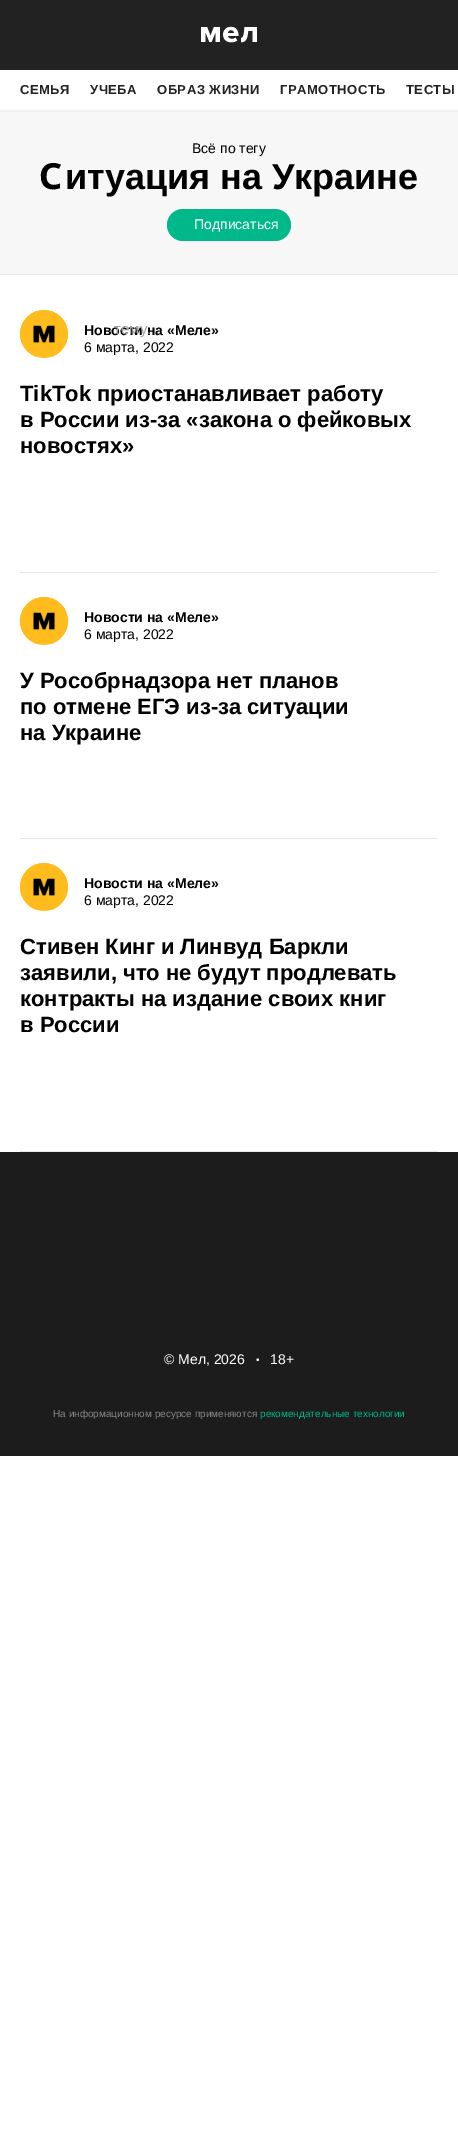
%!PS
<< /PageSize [458 2142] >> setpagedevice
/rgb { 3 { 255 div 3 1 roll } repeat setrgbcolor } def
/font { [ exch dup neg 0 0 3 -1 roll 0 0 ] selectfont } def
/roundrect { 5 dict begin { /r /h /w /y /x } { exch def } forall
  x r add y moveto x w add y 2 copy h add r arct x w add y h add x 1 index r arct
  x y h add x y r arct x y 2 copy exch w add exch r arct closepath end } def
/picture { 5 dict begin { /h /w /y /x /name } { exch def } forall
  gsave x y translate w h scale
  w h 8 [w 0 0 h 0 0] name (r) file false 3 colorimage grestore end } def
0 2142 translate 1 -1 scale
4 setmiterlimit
255 255 255 rgb
0 0 458 2142 rectfill
34 34 34 rgb
0 0 458 70 rectfill
(img/1.rgb) 201 26 56 17 picture
[
  [0 110 458 2 242 242 242]
  [0 112 458 162 247 247 247]
  [0 274 458 1 231 231 231]
] { aload pop rgb rectfill } forall
0 184 138 rgb
167 209 124 32 16 roundrect fill
230 230 230 rgb
20 572 418 1 rectfill
(img/2.rgb) 20 310 48 47 picture
(img/3.rgb) 20 310 48 48 picture
20 838 418 1 rectfill
(img/2.rgb) 20 597 48 47 picture
(img/3.rgb) 20 597 48 48 picture
20 1151 418 1 rectfill
(img/2.rgb) 20 863 48 47 picture
(img/3.rgb) 20 863 48 48 picture
28 28 28 rgb
0 1152 458 304 rectfill
/LiberationSans-Bold 13 font
34 34 34 rgb
20 94 moveto 0.5 0 (СЕМЬЯ) ashow
90 94 moveto 0.5 0 (УЧЕБА) ashow
157 94 moveto 0.5 0 (ОБРАЗ ЖИЗНИ) ashow
280 94 moveto 0.5 0 (ГРАМОТНОСТЬ) ashow
406 94 moveto 0.5 0 (ТЕСТЫ) ashow
/LiberationSans-Regular 14 font
0 0 0 rgb
192 153 moveto (Всё по тегу) show
/NotoSans-Bold 36 font
39 189 moveto (С) show
/LiberationSans-Bold 36 font
65 189 moveto (итуация на Украине) show
/LiberationSans-Regular 14 font
255 255 255 rgb
194 229 moveto (Подписаться) show
/LiberationSans-Bold 14 font
0 0 0 rgb
84 335 moveto (Новости на «Меле») show
/LiberationSans-Regular 15 font
159 159 159 rgb
114 334 moveto (тему.) show
/LiberationSans-Regular 14 font
0 0 0 rgb
84 352 moveto (6 марта, 2022) show
/LiberationSans-Bold 22 font
[
  [(TikTok приостанавливает работу) 20 401]
  [(в России из-за «закона о фейковых) 20 427]
  [(новостях») 20 453]
] { aload pop moveto show } forall
/LiberationSans-Bold 14 font
84 622 moveto (Новости на «Меле») show
/LiberationSans-Regular 14 font
84 639 moveto (6 марта, 2022) show
/LiberationSans-Bold 22 font
[
  [(У Рособрнадзора нет планов) 20 688]
  [(по отмене ЕГЭ из-за ситуации) 20 714]
  [(на Украине) 20 740]
] { aload pop moveto show } forall
/LiberationSans-Bold 14 font
84 888 moveto (Новости на «Меле») show
/LiberationSans-Regular 14 font
84 905 moveto (6 марта, 2022) show
/LiberationSans-Bold 22 font
[
  [(Стивен Кинг и Линвуд Баркли) 20 954]
  [(заявили, что не будут продлевать) 20 980]
  [(контракты на издание своих книг) 20 1006]
  [(в России) 20 1032]
] { aload pop moveto show } forall
/LiberationSans-Regular 14 font
255 255 255 rgb
164 1364 moveto (© Мел, 2026) show
/LiberationSans-Regular 10 font
256 1363 moveto (•) show
/LiberationSans-Regular 14 font
270 1364 moveto (18+) show
/LiberationSans-Regular 10 font
136 136 136 rgb
53 1417 moveto (На информационном ресурсе применяются) show
0 184 138 rgb
260 1417 moveto (рекомендательные технологии) show
showpage
